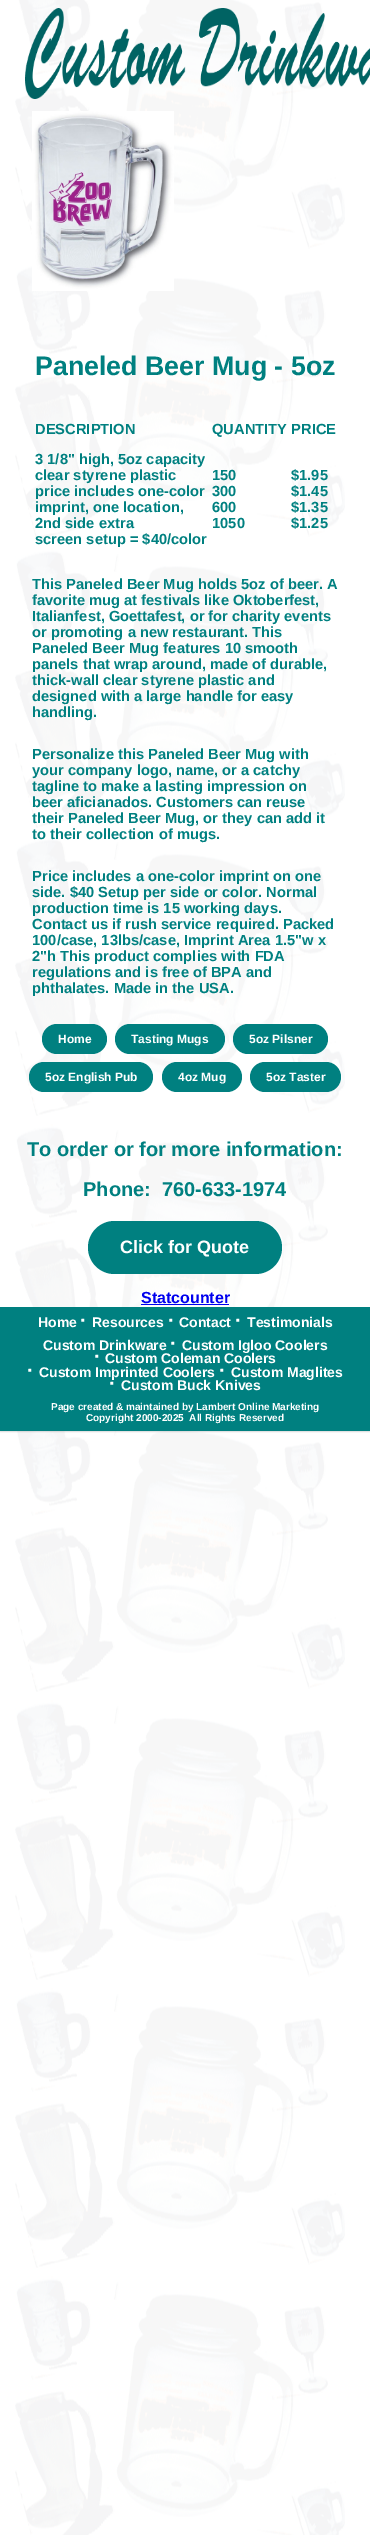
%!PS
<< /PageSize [370 2535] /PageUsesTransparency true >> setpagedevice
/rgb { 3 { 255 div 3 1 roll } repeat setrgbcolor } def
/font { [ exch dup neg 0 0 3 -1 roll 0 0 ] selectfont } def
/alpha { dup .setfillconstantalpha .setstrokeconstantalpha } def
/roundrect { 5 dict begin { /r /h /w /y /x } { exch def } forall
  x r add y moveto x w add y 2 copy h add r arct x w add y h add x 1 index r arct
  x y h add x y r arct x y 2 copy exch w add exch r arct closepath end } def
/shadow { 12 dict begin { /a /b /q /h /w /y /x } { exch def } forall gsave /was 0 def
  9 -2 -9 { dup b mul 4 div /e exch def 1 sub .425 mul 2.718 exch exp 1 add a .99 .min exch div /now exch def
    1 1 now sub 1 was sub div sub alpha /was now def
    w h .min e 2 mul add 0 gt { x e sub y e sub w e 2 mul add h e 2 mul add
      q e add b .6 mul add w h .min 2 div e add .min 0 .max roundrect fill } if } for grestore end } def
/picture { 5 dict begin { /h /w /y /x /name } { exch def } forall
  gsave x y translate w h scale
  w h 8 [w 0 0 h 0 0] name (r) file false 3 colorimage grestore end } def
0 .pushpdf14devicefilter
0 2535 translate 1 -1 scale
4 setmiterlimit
255 255 255 rgb
0 0 370 2535 rectfill
(img/1.rgb) 15 0 330 2535 picture
(img/2.rgb) 25 8 345 91 picture
(img/3.rgb) 32 111 142 180 picture
0 128 128 rgb
42 1024 65 30 15 roundrect fill
115 1024 110 30 15 roundrect fill
233 1024 95 30 15 roundrect fill
29 1062 124 30 15 roundrect fill
162 1062 80 30 15 roundrect fill
250 1062 91 30 15 roundrect fill
88 1221 194 53 26.5 roundrect fill
0 0 238 rgb
141 1304 88 1 rectfill
0 0 0 rgb
0 1308 370 124 0 0.5 0.12 shadow
0 128 128 rgb
0 1307 370 124 rectfill
/LiberationSans-Bold 26.75 font
35 375 moveto (Paneled Beer Mug - 5oz) show
/LiberationSans-Bold 14.7 font
[
  [(DESCRIPTION) 35 434]
  [(QUANTITY PRICE) 212 434]
  [(3 1/8" high, 5oz capacity) 35 464]
  [(clear styrene plastic) 35 480]
  [(price includes one-color) 35 496]
  [(imprint, one location,) 35 512]
  [(2nd side extra) 35 528]
  [(screen setup = $40/color) 35 544]
  [(150) 212 480]
  [(300) 212 496]
  [(600) 212 512]
  [(1050) 212 528]
  [($1.95) 291 480]
  [($1.45) 291 496]
  [($1.35) 291 512]
  [($1.25) 291 528]
  [(This Paneled Beer Mug holds 5oz of beer. A) 32 589]
  [(favorite mug at festivals like Oktoberfest,) 32 605]
  [(Italianfest, Goettafest, or for charity events) 32 621]
  [(or promoting a new restaurant. This) 32 637]
  [(Paneled Beer Mug features 10 smooth) 32 653]
  [(panels that wrap around, made of durable,) 32 669]
  [(thick-wall clear styrene plastic and) 32 685]
  [(designed with a large handle for easy) 32 701]
  [(handling.) 32 717]
  [(Personalize this Paneled Beer Mug with) 32 759]
  [(your company logo, name, or a catchy) 32 775]
  [(tagline to make a lasting impression on) 32 791]
  [(beer aficianados. Customers can reuse) 32 807]
  [(their Paneled Beer Mug, or they can add it) 32 823]
  [(to their collection of mugs.) 32 839]
  [(Price includes a one-color imprint on one) 32 881]
  [(side. $40 Setup per side or color. Normal) 32 897]
  [(production time is 15 working days.) 32 913]
  [(Contact us if rush service required. Packed) 32 929]
  [(100/case, 13lbs/case, Imprint Area 1.5"w x) 32 945]
  [(2"h This product complies with FDA) 32 961]
  [(regulations and is free of BPA and) 32 977]
  [(phthalates. Made in the USA.) 32 993]
] { aload pop moveto show } forall
/LiberationSans-Bold 12 font
255 255 255 rgb
[
  [(Home) 58 1043]
  [(Tasting Mugs) 131 1043]
  [(5oz Pilsner) 249 1043]
  [(5oz English Pub) 45 1081]
  [(4oz Mug) 178 1081]
  [(5oz Taster) 266 1081]
] { aload pop moveto show } forall
/LiberationSans-Bold 20 font
0 128 128 rgb
27 1156 moveto (To order or for more information:) show
83 1196 moveto (Phone:  760-633-1974) show
/LiberationSans-Bold 18 font
255 255 255 rgb
120 1253 moveto (Click for Quote) show
/LiberationSans-Bold 16 font
0 0 238 rgb
141 1303 moveto (Statcounter) show
/LiberationSans-Bold 14 font
255 255 255 rgb
38 1327 moveto (Home) show
/LiberationSans-Bold 20 font
80 1327 moveto (·) show
/LiberationSans-Bold 14 font
92 1327 moveto (Resources) show
/LiberationSans-Bold 20 font
168 1327 moveto (·) show
/LiberationSans-Bold 14 font
179 1327 moveto (Contact) show
/LiberationSans-Bold 20 font
235 1327 moveto (·) show
/LiberationSans-Bold 14 font
247 1327 moveto (Testimonials) show
43 1350 moveto (Custom Drinkware) show
/LiberationSans-Bold 20 font
170 1350 moveto (·) show
/LiberationSans-Bold 14 font
182 1350 moveto (Custom Igloo Coolers) show
/LiberationSans-Bold 20 font
94 1363 moveto (·) show
/LiberationSans-Bold 14 font
105 1363 moveto (Custom Coleman Coolers) show
/LiberationSans-Bold 20 font
27 1377 moveto (·) show
/LiberationSans-Bold 14 font
39 1377 moveto (Custom Imprinted Coolers) show
/LiberationSans-Bold 20 font
219 1377 moveto (·) show
/LiberationSans-Bold 14 font
231 1377 moveto (Custom Maglites) show
/LiberationSans-Bold 20 font
109 1390 moveto (·) show
/LiberationSans-Bold 14 font
121 1390 moveto (Custom Buck Knives) show
/LiberationSans-Bold 10 font
51 1410 moveto (Page created & maintained by Lambert Online Marketing) show
86 1421 moveto (Copyright 2000-2025  All Rights Reserved) show
.poppdf14devicefilter showpage
